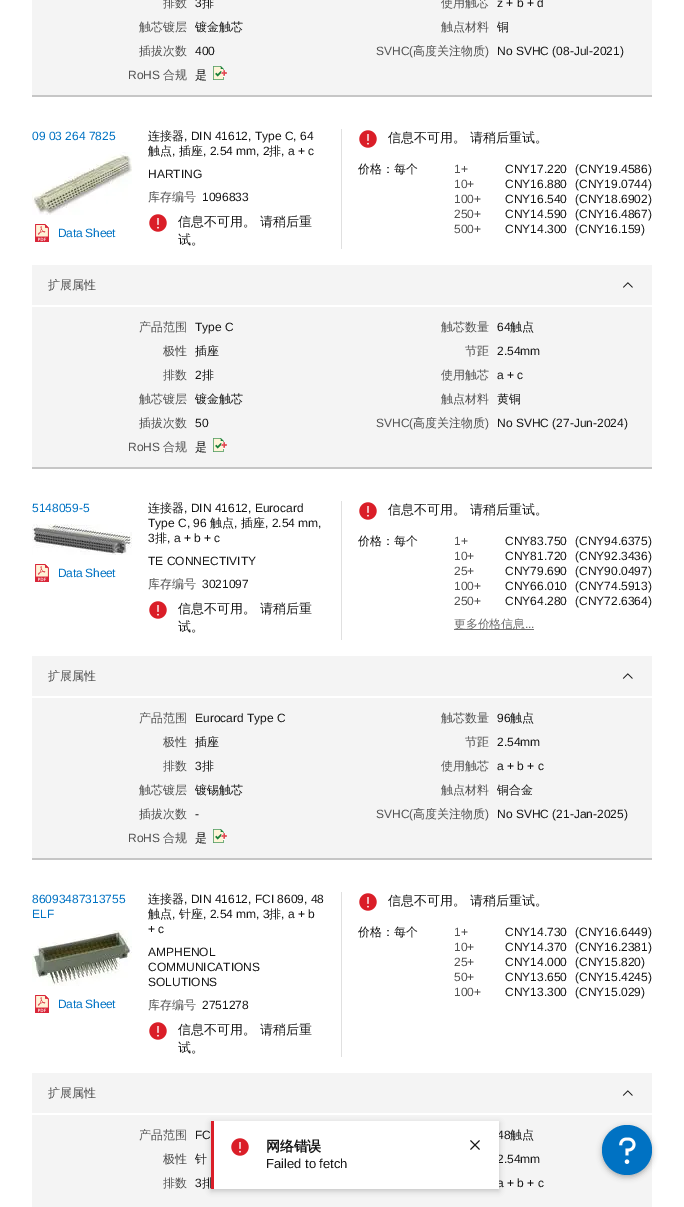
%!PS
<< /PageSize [684 1207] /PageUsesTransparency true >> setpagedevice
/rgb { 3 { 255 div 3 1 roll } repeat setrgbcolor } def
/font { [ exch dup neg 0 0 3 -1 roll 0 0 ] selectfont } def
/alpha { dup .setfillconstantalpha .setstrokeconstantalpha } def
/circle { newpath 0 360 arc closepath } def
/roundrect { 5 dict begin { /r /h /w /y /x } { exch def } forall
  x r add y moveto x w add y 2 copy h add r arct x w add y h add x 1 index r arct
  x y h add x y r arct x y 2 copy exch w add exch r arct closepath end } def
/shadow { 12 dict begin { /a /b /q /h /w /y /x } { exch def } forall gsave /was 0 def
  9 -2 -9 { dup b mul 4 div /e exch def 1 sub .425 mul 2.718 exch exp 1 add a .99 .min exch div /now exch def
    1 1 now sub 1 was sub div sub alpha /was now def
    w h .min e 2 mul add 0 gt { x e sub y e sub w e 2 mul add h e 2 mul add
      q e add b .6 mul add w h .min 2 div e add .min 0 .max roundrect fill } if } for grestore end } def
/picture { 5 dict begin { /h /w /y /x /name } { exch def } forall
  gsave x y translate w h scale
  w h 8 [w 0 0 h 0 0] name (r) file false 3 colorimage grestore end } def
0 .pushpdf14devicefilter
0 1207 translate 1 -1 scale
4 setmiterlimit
255 255 255 rgb
0 0 684 1207 rectfill
244 244 244 rgb
32 0 620 95 rectfill
(img/1.rgb) 213 66 14 14 picture
198 198 198 rgb
32 95 620 2 rectfill
(img/2.rgb) 32 152 100 63 picture
(img/3.rgb) 35 224 14 18 picture
224 224 224 rgb
341 129 1 120 rectfill
(img/4.rgb) 149 214 18 18 picture
(img/4.rgb) 359 130 18 18 picture
244 244 244 rgb
32 265 620 202 rectfill
(img/5.rgb) 623 282 10 6 picture
255 255 255 rgb
32 305 620 2 rectfill
(img/1.rgb) 213 438 14 14 picture
198 198 198 rgb
32 467 620 2 rectfill
(img/6.rgb) 32 524 100 31 picture
(img/3.rgb) 35 564 14 18 picture
224 224 224 rgb
341 501 1 139 rectfill
(img/4.rgb) 149 601 18 18 picture
(img/4.rgb) 359 502 18 18 picture
111 111 111 rgb
454 629 80 1 rectfill
244 244 244 rgb
32 656 620 202 rectfill
(img/7.rgb) 622 673 11 6 picture
255 255 255 rgb
32 696 620 2 rectfill
(img/1.rgb) 213 829 14 14 picture
198 198 198 rgb
32 858 620 2 rectfill
(img/8.rgb) 32 930 100 56 picture
(img/3.rgb) 35 995 14 18 picture
224 224 224 rgb
341 892 1 165 rectfill
(img/4.rgb) 149 1022 18 18 picture
(img/4.rgb) 359 893 18 18 picture
244 244 244 rgb
32 1073 620 134 rectfill
(img/7.rgb) 622 1090 11 6 picture
255 255 255 rgb
32 1113 620 2 rectfill
0 0 0 rgb
211 1123 288 68 0 3 0.2 shadow
602 1127 50 50 25 3 0.3 shadow
0 114 195 rgb
627 1150 25 circle fill
(img/10.rgb) 619 1137 17 27 picture
/WenQuanYiZenHei-Medium 12 font
82 82 82 rgb
163 7 moveto (排数) show
/LiberationSans-Regular 12 font
22 22 22 rgb
195 7 moveto (3) show
/WenQuanYiZenHei-Medium 12 font
202 7 moveto (排) show
82 82 82 rgb
441 7 moveto (使用触芯) show
/LiberationSans-Regular 12 font
22 22 22 rgb
497 7 moveto (z + b + d) show
/WenQuanYiZenHei-Medium 12 font
82 82 82 rgb
139 31 moveto (触芯镀层) show
22 22 22 rgb
195 31 moveto (镀金触芯) show
82 82 82 rgb
441 31 moveto (触点材料) show
22 22 22 rgb
497 31 moveto (铜) show
82 82 82 rgb
139 55 moveto (插拔次数) show
/LiberationSans-Regular 12 font
22 22 22 rgb
195 55 moveto (400) show
82 82 82 rgb
376 55 moveto (SVHC\() show
/WenQuanYiZenHei-Medium 12 font
413 55 moveto (高度关注物质) show
/LiberationSans-Regular 12 font
485 55 moveto (\)) show
22 22 22 rgb
497 55 moveto (No SVHC \(08-Jul-2021\)) show
82 82 82 rgb
128 79 moveto (RoHS) show
/WenQuanYiZenHei-Medium 12 font
163 79 moveto (合规) show
22 22 22 rgb
195 79 moveto (是) show
/LiberationSans-Regular 12 font
0 114 195 rgb
32 140 moveto (09 03 264 7825) show
58 237 moveto -0.25 0 (Data Sheet) ashow
/WenQuanYiZenHei-Medium 12 font
22 22 22 rgb
148 140 moveto (连接器) show
/LiberationSans-Regular 12 font
184 140 moveto (, DIN 41612, Type C, 64) show
/WenQuanYiZenHei-Medium 12 font
148 155 moveto (触点) show
/LiberationSans-Regular 12 font
172 155 moveto (,) show
/WenQuanYiZenHei-Medium 12 font
179 155 moveto (插座) show
/LiberationSans-Regular 12 font
203 155 moveto (, 2.54 mm, 2) show
/WenQuanYiZenHei-Medium 12 font
269 155 moveto (排) show
/LiberationSans-Regular 12 font
281 155 moveto (, a + c) show
148 178 moveto (HARTING) show
/WenQuanYiZenHei-Medium 12 font
82 82 82 rgb
148 201 moveto (库存编号) show
/LiberationSans-Regular 12 font
22 22 22 rgb
202 201 moveto (1096833) show
/WenQuanYiZenHei-Medium 13 font
[
  [(信息不可用。 请稍后重) 178 226]
  [(试。) 178 244]
  [(信息不可用。 请稍后重试。) 388 142]
] { aload pop moveto show } forall
/WenQuanYiZenHei-Medium 12 font
358 173 moveto (价格：每个) show
/LiberationSans-Regular 12 font
82 82 82 rgb
454 173 moveto (1+) show
22 22 22 rgb
505 173 moveto (CNY17.220) show
575 173 moveto (\(CNY19.4586\)) show
82 82 82 rgb
454 188 moveto (10+) show
22 22 22 rgb
505 188 moveto (CNY16.880) show
575 188 moveto (\(CNY19.0744\)) show
82 82 82 rgb
454 203 moveto (100+) show
22 22 22 rgb
505 203 moveto (CNY16.540) show
575 203 moveto (\(CNY18.6902\)) show
82 82 82 rgb
454 218 moveto (250+) show
22 22 22 rgb
505 218 moveto (CNY14.590) show
575 218 moveto (\(CNY16.4867\)) show
82 82 82 rgb
454 233 moveto (500+) show
22 22 22 rgb
505 233 moveto (CNY14.300) show
575 233 moveto (\(CNY16.159\)) show
/WenQuanYiZenHei-Medium 12 font
82 82 82 rgb
48 289 moveto (扩展属性) show
139 331 moveto (产品范围) show
/LiberationSans-Regular 12 font
22 22 22 rgb
195 331 moveto (Type C) show
/WenQuanYiZenHei-Medium 12 font
82 82 82 rgb
441 331 moveto (触芯数量) show
/LiberationSans-Regular 12 font
22 22 22 rgb
497 331 moveto (64) show
/WenQuanYiZenHei-Medium 12 font
510 331 moveto (触点) show
82 82 82 rgb
163 355 moveto (极性) show
22 22 22 rgb
195 355 moveto (插座) show
82 82 82 rgb
465 355 moveto (节距) show
/LiberationSans-Regular 12 font
22 22 22 rgb
497 355 moveto (2.54mm) show
/WenQuanYiZenHei-Medium 12 font
82 82 82 rgb
163 379 moveto (排数) show
/LiberationSans-Regular 12 font
22 22 22 rgb
195 379 moveto (2) show
/WenQuanYiZenHei-Medium 12 font
202 379 moveto (排) show
82 82 82 rgb
441 379 moveto (使用触芯) show
/LiberationSans-Regular 12 font
22 22 22 rgb
497 379 moveto (a + c) show
/WenQuanYiZenHei-Medium 12 font
82 82 82 rgb
139 403 moveto (触芯镀层) show
22 22 22 rgb
195 403 moveto (镀金触芯) show
82 82 82 rgb
441 403 moveto (触点材料) show
22 22 22 rgb
497 403 moveto (黄铜) show
82 82 82 rgb
139 427 moveto (插拔次数) show
/LiberationSans-Regular 12 font
22 22 22 rgb
195 427 moveto (50) show
82 82 82 rgb
376 427 moveto (SVHC\() show
/WenQuanYiZenHei-Medium 12 font
413 427 moveto (高度关注物质) show
/LiberationSans-Regular 12 font
485 427 moveto (\)) show
22 22 22 rgb
497 427 moveto (No SVHC \(27-Jun-2024\)) show
82 82 82 rgb
128 451 moveto (RoHS) show
/WenQuanYiZenHei-Medium 12 font
163 451 moveto (合规) show
22 22 22 rgb
195 451 moveto (是) show
/LiberationSans-Regular 12 font
0 114 195 rgb
32 512 moveto (5148059-5) show
58 577 moveto -0.25 0 (Data Sheet) ashow
/WenQuanYiZenHei-Medium 12 font
22 22 22 rgb
148 512 moveto (连接器) show
/LiberationSans-Regular 12 font
184 512 moveto (, DIN 41612, Eurocard) show
148 527 moveto (Type C, 96) show
/WenQuanYiZenHei-Medium 12 font
210 527 moveto (触点) show
/LiberationSans-Regular 12 font
234 527 moveto (,) show
/WenQuanYiZenHei-Medium 12 font
241 527 moveto (插座) show
/LiberationSans-Regular 12 font
265 527 moveto (, 2.54 mm,) show
148 542 moveto (3) show
/WenQuanYiZenHei-Medium 12 font
155 542 moveto (排) show
/LiberationSans-Regular 12 font
167 542 moveto (, a + b + c) show
148 565 moveto (TE CONNECTIVITY) show
/WenQuanYiZenHei-Medium 12 font
82 82 82 rgb
148 588 moveto (库存编号) show
/LiberationSans-Regular 12 font
22 22 22 rgb
202 588 moveto (3021097) show
/WenQuanYiZenHei-Medium 13 font
[
  [(信息不可用。 请稍后重) 178 613]
  [(试。) 178 631]
  [(信息不可用。 请稍后重试。) 388 514]
] { aload pop moveto show } forall
/WenQuanYiZenHei-Medium 12 font
358 545 moveto (价格：每个) show
/LiberationSans-Regular 12 font
82 82 82 rgb
454 545 moveto (1+) show
22 22 22 rgb
505 545 moveto (CNY83.750) show
575 545 moveto (\(CNY94.6375\)) show
82 82 82 rgb
454 560 moveto (10+) show
22 22 22 rgb
505 560 moveto (CNY81.720) show
575 560 moveto (\(CNY92.3436\)) show
82 82 82 rgb
454 575 moveto (25+) show
22 22 22 rgb
505 575 moveto (CNY79.690) show
575 575 moveto (\(CNY90.0497\)) show
82 82 82 rgb
454 590 moveto (100+) show
22 22 22 rgb
505 590 moveto (CNY66.010) show
575 590 moveto (\(CNY74.5913\)) show
82 82 82 rgb
454 605 moveto (250+) show
22 22 22 rgb
505 605 moveto (CNY64.280) show
575 605 moveto (\(CNY72.6364\)) show
/WenQuanYiZenHei-Medium 12 font
111 111 111 rgb
454 628 moveto -0.25 0 (更多价格信息) ashow
/LiberationSans-Regular 12 font
525 628 moveto -0.25 0 (...) ashow
/WenQuanYiZenHei-Medium 12 font
82 82 82 rgb
48 680 moveto (扩展属性) show
139 722 moveto (产品范围) show
/LiberationSans-Regular 12 font
22 22 22 rgb
195 722 moveto (Eurocard Type C) show
/WenQuanYiZenHei-Medium 12 font
82 82 82 rgb
441 722 moveto (触芯数量) show
/LiberationSans-Regular 12 font
22 22 22 rgb
497 722 moveto (96) show
/WenQuanYiZenHei-Medium 12 font
510 722 moveto (触点) show
82 82 82 rgb
163 746 moveto (极性) show
22 22 22 rgb
195 746 moveto (插座) show
82 82 82 rgb
465 746 moveto (节距) show
/LiberationSans-Regular 12 font
22 22 22 rgb
497 746 moveto (2.54mm) show
/WenQuanYiZenHei-Medium 12 font
82 82 82 rgb
163 770 moveto (排数) show
/LiberationSans-Regular 12 font
22 22 22 rgb
195 770 moveto (3) show
/WenQuanYiZenHei-Medium 12 font
202 770 moveto (排) show
82 82 82 rgb
441 770 moveto (使用触芯) show
/LiberationSans-Regular 12 font
22 22 22 rgb
497 770 moveto (a + b + c) show
/WenQuanYiZenHei-Medium 12 font
82 82 82 rgb
139 794 moveto (触芯镀层) show
22 22 22 rgb
195 794 moveto (镀锡触芯) show
82 82 82 rgb
441 794 moveto (触点材料) show
22 22 22 rgb
497 794 moveto (铜合金) show
82 82 82 rgb
139 818 moveto (插拔次数) show
/LiberationSans-Regular 12 font
22 22 22 rgb
195 818 moveto (-) show
82 82 82 rgb
376 818 moveto (SVHC\() show
/WenQuanYiZenHei-Medium 12 font
413 818 moveto (高度关注物质) show
/LiberationSans-Regular 12 font
485 818 moveto (\)) show
22 22 22 rgb
497 818 moveto (No SVHC \(21-Jan-2025\)) show
82 82 82 rgb
128 842 moveto (RoHS) show
/WenQuanYiZenHei-Medium 12 font
163 842 moveto (合规) show
22 22 22 rgb
195 842 moveto (是) show
/LiberationSans-Regular 12 font
0 114 195 rgb
32 903 moveto (86093487313755) show
32 918 moveto (ELF) show
58 1008 moveto -0.25 0 (Data Sheet) ashow
/WenQuanYiZenHei-Medium 12 font
22 22 22 rgb
148 903 moveto (连接器) show
/LiberationSans-Regular 12 font
184 903 moveto (, DIN 41612, FCI 8609, 48) show
/WenQuanYiZenHei-Medium 12 font
148 918 moveto (触点) show
/LiberationSans-Regular 12 font
172 918 moveto (,) show
/WenQuanYiZenHei-Medium 12 font
179 918 moveto (针座) show
/LiberationSans-Regular 12 font
203 918 moveto (, 2.54 mm, 3) show
/WenQuanYiZenHei-Medium 12 font
269 918 moveto (排) show
/LiberationSans-Regular 12 font
[
  [(, a + b) 281 918]
  [(+ c) 148 933]
  [(AMPHENOL) 148 956]
  [(COMMUNICATIONS) 148 971]
  [(SOLUTIONS) 148 986]
] { aload pop moveto show } forall
/WenQuanYiZenHei-Medium 12 font
82 82 82 rgb
148 1009 moveto (库存编号) show
/LiberationSans-Regular 12 font
22 22 22 rgb
202 1009 moveto (2751278) show
/WenQuanYiZenHei-Medium 13 font
[
  [(信息不可用。 请稍后重) 178 1034]
  [(试。) 178 1052]
  [(信息不可用。 请稍后重试。) 388 905]
] { aload pop moveto show } forall
/WenQuanYiZenHei-Medium 12 font
358 936 moveto (价格：每个) show
/LiberationSans-Regular 12 font
82 82 82 rgb
454 936 moveto (1+) show
22 22 22 rgb
505 936 moveto (CNY14.730) show
575 936 moveto (\(CNY16.6449\)) show
82 82 82 rgb
454 951 moveto (10+) show
22 22 22 rgb
505 951 moveto (CNY14.370) show
575 951 moveto (\(CNY16.2381\)) show
82 82 82 rgb
454 966 moveto (25+) show
22 22 22 rgb
505 966 moveto (CNY14.000) show
575 966 moveto (\(CNY15.820\)) show
82 82 82 rgb
454 981 moveto (50+) show
22 22 22 rgb
505 981 moveto (CNY13.650) show
575 981 moveto (\(CNY15.4245\)) show
82 82 82 rgb
454 996 moveto (100+) show
22 22 22 rgb
505 996 moveto (CNY13.300) show
575 996 moveto (\(CNY15.029\)) show
/WenQuanYiZenHei-Medium 12 font
82 82 82 rgb
48 1097 moveto (扩展属性) show
139 1139 moveto (产品范围) show
/LiberationSans-Regular 12 font
22 22 22 rgb
195 1139 moveto (FC) show
497 1139 moveto (48) show
/WenQuanYiZenHei-Medium 12 font
510 1139 moveto (触点) show
82 82 82 rgb
163 1163 moveto (极性) show
22 22 22 rgb
195 1163 moveto (针) show
/LiberationSans-Regular 12 font
497 1163 moveto (2.54mm) show
/WenQuanYiZenHei-Medium 12 font
82 82 82 rgb
163 1187 moveto (排数) show
/LiberationSans-Regular 12 font
22 22 22 rgb
195 1187 moveto (3) show
/WenQuanYiZenHei-Medium 12 font
202 1187 moveto (排) show
/LiberationSans-Regular 12 font
497 1187 moveto (a + b + c) show
255 255 255 rgb
214 1121 285 68 rectfill
218 30 40 rgb
211 1121 3 68 rectfill
(img/4.rgb) 231 1138 18 18 picture
/WenQuanYiZenHei-Bold 14 font
22 22 22 rgb
266 1151 moveto -0.25 0 (网络错误) ashow
/LiberationSans-Regular 13 font
266 1168 moveto (Failed to fetch) show
(img/9.rgb) 470 1140 10 10 picture
.poppdf14devicefilter showpage
